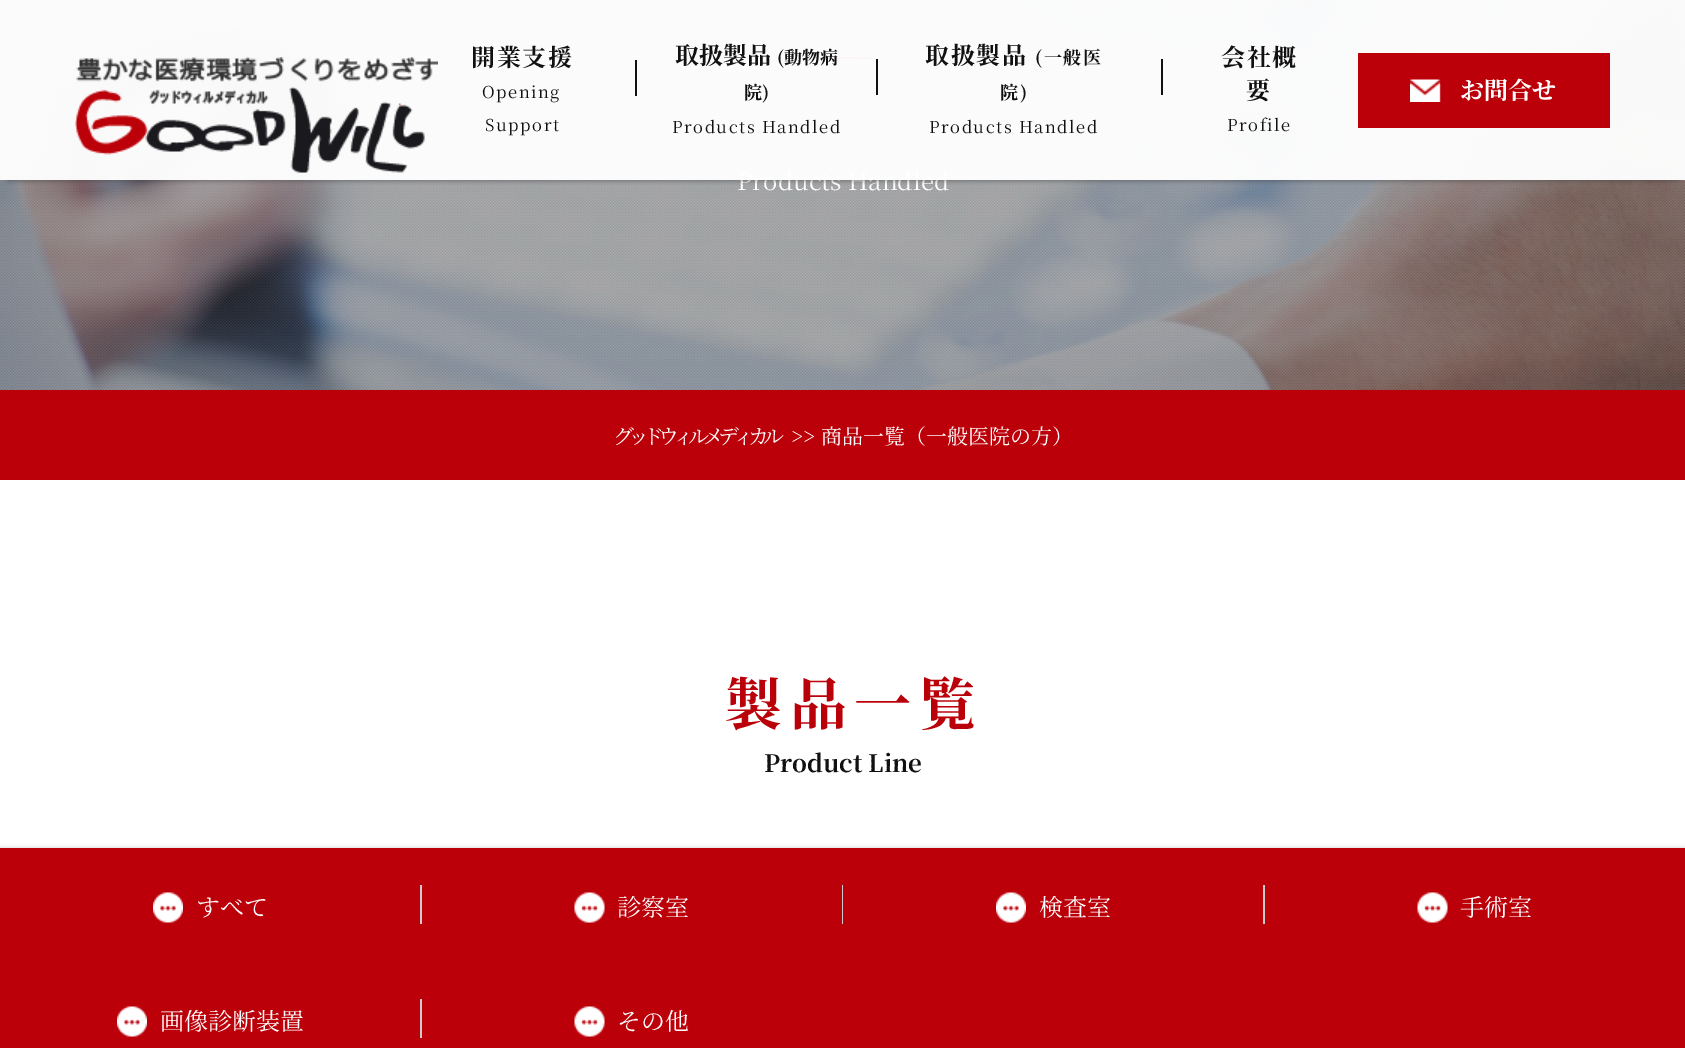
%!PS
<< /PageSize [1685 1048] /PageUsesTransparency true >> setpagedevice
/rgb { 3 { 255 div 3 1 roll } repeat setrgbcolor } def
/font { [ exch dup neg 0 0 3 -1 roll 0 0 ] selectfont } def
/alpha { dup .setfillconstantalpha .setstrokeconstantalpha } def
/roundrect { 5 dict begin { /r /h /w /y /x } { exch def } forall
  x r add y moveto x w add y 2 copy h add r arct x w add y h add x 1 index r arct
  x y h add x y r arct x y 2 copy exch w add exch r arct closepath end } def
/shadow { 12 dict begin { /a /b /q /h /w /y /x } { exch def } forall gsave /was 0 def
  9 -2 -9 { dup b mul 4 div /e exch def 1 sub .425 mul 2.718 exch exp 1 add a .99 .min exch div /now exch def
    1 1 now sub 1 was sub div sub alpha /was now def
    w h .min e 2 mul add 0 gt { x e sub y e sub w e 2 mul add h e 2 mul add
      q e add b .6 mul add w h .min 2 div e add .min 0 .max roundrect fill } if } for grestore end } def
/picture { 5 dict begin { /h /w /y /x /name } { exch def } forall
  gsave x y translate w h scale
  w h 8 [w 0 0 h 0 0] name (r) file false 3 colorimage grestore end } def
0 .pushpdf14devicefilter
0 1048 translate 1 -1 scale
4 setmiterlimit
255 255 255 rgb
0 0 1685 1048 rectfill
(img/3.rgb) 0 0 1685 390 picture
(img/4.rgb) 0 0 1685 390 picture
187 0 9 rgb
813 57 60 2 rectfill
0 390 1685 90 rectfill
0 0 0 rgb
0 848 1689 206 0 2 0.2 shadow
187 0 9 rgb
0 848 1685 200 rectfill
(img/5.rgb) 153 892 30 31 picture
204 204 204 rgb
420 885 2 39 rectfill
(img/6.rgb) 574 892 31 31 picture
842 885 1 39 rectfill
(img/5.rgb) 996 892 30 31 picture
1263 885 2 39 rectfill
(img/6.rgb) 1417 892 31 31 picture
(img/5.rgb) 117 1006 30 31 picture
420 999 2 39 rectfill
(img/6.rgb) 574 1006 31 31 picture
/NotoSerifJP-Regular 24 font
255 255 255 rgb
737 190 moveto (Products Handled) show
0.96 alpha
0 0 1685 180 rectfill
gsave
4 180 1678 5 rectclip
1 alpha
51 51 51 rgb
9 17 1668 162 0 3 1 shadow
grestore
/NotoSerifJP-Regular 16.5 font
1 alpha
17 17 17 rgb
1227 131 moveto 1.5 0 (Profile) ashow
/NotoSerifJP-Bold 24 font
1246 99 moveto 1.5 0 (要) ashow
1221 66 moveto 1.5 0 (会社概) ashow
1161 59 2 36 rectfill
/NotoSerifJP-Regular 16.5 font
929 133 moveto 1.5 0 (Products Handled) ashow
/NotoSerifJP-Bold 18 font
1000 99 moveto 1.5 0 (院\)) ashow
1035 64 moveto 1.5 0 (\(一般医) ashow
/NotoSerifJP-Bold 24 font
925 64 moveto 1.5 0 (取扱製品) ashow
876 59 2 36 rectfill
/NotoSerifJP-Regular 16.5 font
672 133 moveto 1.5 0 (Products Handled) ashow
/NotoSerifJP-Bold 18 font
744 99 moveto (院\)) show
777 64 moveto (\(動物病) show
/NotoSerifJP-Bold 24 font
675 64 moveto (取扱製品) show
635 60 2 36 rectfill
/NotoSerifJP-Regular 16.5 font
485 131 moveto 1.5 0 (Support) ashow
482 98 moveto 1.5 0 (Opening) ashow
/NotoSerifJP-Bold 24 font
471 66 moveto 1.5 0 (開業支援) ashow
(img/1.rgb) 75 57 363 116 picture
187 0 9 rgb
1358 53 252 75 rectfill
255 255 255 rgb
1460 99 moveto (お問合せ) show
(img/2.rgb) 1410 79 31 23 picture
/NotoSerifJP-Regular 21 font
613 444 moveto -6 0 (グッドウィルメディカル) ashow
791 444 moveto (>> 商品一覧（一般医院の方）) show
/NotoSerifJP-Bold 57 font
186 0 8 rgb
725 725 moveto 7.5 0 (製品一覧) ashow
/NotoSerifJP-Bold 24 font
17 17 17 rgb
764 772 moveto (Product Line) show
/NotoSerifJP-Regular 24 font
255 255 255 rgb
[
  [(すべて) 196 916]
  [(診察室) 617 916]
  [(検査室) 1039 916]
  [(手術室) 1460 916]
  [(画像診断装置) 160 1030]
  [(その他) 617 1030]
] { aload pop moveto show } forall
.poppdf14devicefilter showpage
